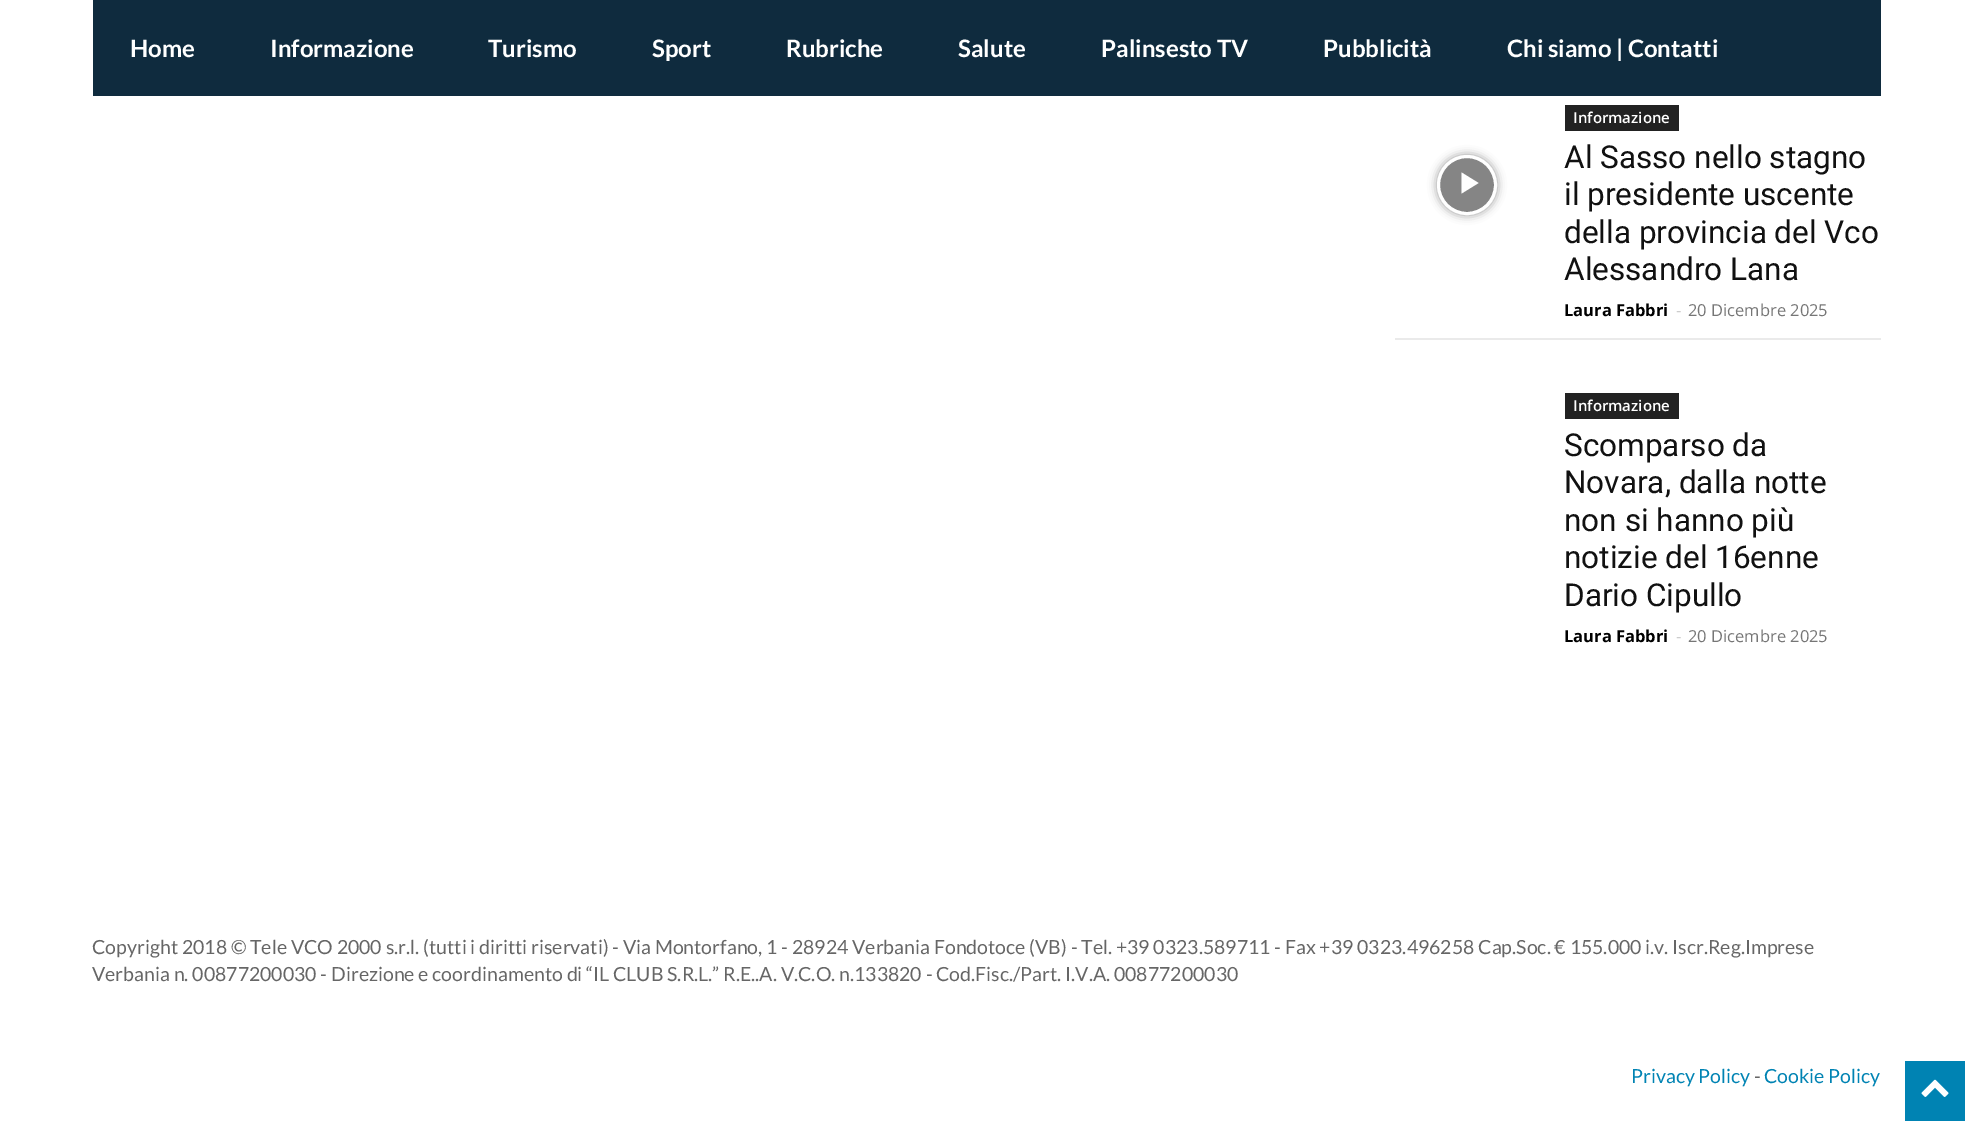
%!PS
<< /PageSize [1972 1126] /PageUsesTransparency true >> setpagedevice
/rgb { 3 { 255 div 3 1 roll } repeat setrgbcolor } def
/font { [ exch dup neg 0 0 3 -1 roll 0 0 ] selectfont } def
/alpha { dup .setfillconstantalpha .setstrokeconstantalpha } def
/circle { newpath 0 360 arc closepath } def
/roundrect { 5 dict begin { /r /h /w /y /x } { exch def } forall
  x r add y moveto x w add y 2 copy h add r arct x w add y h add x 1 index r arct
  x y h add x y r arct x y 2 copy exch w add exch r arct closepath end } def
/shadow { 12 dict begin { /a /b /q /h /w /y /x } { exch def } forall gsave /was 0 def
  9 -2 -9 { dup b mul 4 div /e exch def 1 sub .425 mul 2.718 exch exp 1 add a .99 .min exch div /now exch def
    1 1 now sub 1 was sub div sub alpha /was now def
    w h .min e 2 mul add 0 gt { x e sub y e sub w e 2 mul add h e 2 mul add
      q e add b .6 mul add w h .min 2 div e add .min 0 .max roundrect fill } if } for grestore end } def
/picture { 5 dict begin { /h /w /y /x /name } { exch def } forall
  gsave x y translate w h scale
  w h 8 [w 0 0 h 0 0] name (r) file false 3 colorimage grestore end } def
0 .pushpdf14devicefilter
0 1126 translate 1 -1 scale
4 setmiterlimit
255 255 255 rgb
0 0 1972 1126 rectfill
15 43 62 rgb
93 0 1788 96 rectfill
234 234 234 rgb
1395 338 486 2 rectfill
gsave
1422 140 moveto 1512 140 lineto 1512 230 lineto 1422 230 lineto closepath 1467 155 moveto 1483.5 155 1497 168.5 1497 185 curveto 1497 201.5 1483.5 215 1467 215 curveto 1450.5 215 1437 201.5 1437 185 curveto 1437 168.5 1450.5 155 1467 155 curveto closepath eoclip newpath
0 0 0 rgb
1437 155 60 60 30 4.5 0.4 shadow
grestore
0.48 alpha
0 0 0 rgb
1467 185 28.5 circle fill
1 alpha
255 255 255 rgb
3 setlinewidth
1467 185 28.5 circle stroke
1461.5 172.5 moveto 1461.5 193.5 lineto 1478.5 183 lineto closepath fill
[
  [1565 105 114 26 34 34 34]
  [1565 393 114 26 34 34 34]
  [1905 1061 60 60 0 131 179]
] { aload pop rgb rectfill } forall
(img/1.rgb) 1921 1079 28 18 picture
/Lato-Bold 24 font
255 255 255 rgb
[
  [(Home) 130 57]
  [(Informazione) 270 57]
  [(Turismo) 488 57]
  [(Sport) 652 57]
  [(Rubriche) 786 57]
  [(Salute) 958 57]
  [(Palinsesto TV) 1101 57]
  [(Pubblicità) 1323 57]
  [(Chi siamo | Contatti) 1507 57]
] { aload pop moveto show } forall
/OpenSans-SemiBold 15 font
1573 123 moveto (Informazione) show
/Roboto-Regular 31.5 font
17 17 17 rgb
[
  [(Al Sasso nello stagno) 1564 168]
  [(il presidente uscente) 1564 205]
  [(della provincia del Vco) 1564 243]
  [(Alessandro Lana) 1564 280]
] { aload pop moveto show } forall
/OpenSans-Bold 16.5 font
0 0 0 rgb
1564 316 moveto (Laura Fabbri) show
/OpenSans-Regular 16.5 font
204 204 204 rgb
1676 316 moveto (-) show
118 118 118 rgb
1688 316 moveto (20 Dicembre 2025) show
/OpenSans-SemiBold 15 font
255 255 255 rgb
1573 411 moveto (Informazione) show
/Roboto-Regular 31.5 font
17 17 17 rgb
[
  [(Scomparso da) 1564 456]
  [(Novara, dalla notte) 1564 493]
  [(non si hanno più) 1564 531]
  [(notizie del 16enne) 1564 568]
  [(Dario Cipullo) 1564 606]
] { aload pop moveto show } forall
/OpenSans-Bold 16.5 font
0 0 0 rgb
1564 642 moveto (Laura Fabbri) show
/OpenSans-Regular 16.5 font
204 204 204 rgb
1676 642 moveto (-) show
118 118 118 rgb
1688 642 moveto (20 Dicembre 2025) show
/Lato-Regular 19.5 font
102 102 102 rgb
92 954 moveto (Copyright 2018 © Tele VCO 2000 s.r.l. \(tutti i diritti riservati\) - Via Montorfano, 1 - 28924 Verbania Fondotoce \(VB\) - Tel. +39 0323.589711 - Fax +39 0323.496258 Cap.Soc. € 155.000 i.v. Iscr.Reg.Imprese) show
92 981 moveto (Verbania n. 00877200030 - Direzione e coordinamento di “IL CLUB S.R.L.” R.E..A. V.C.O. n.133820 - Cod.Fisc./Part. I.V.A. 00877200030) show
0 131 179 rgb
1631 1083 moveto (Privacy Policy) show
102 102 102 rgb
1754 1083 moveto (-) show
0 131 179 rgb
1764 1083 moveto (Cookie Policy) show
.poppdf14devicefilter showpage
